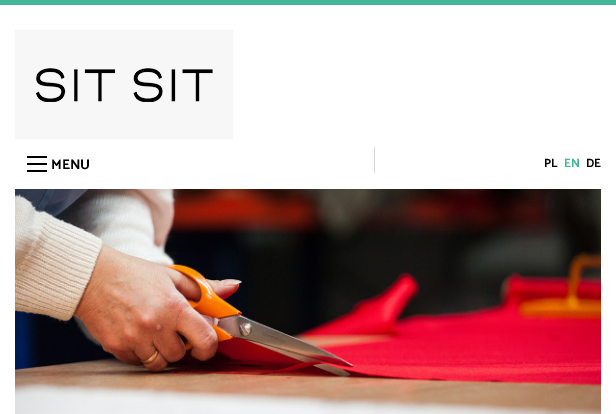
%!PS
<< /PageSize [616 414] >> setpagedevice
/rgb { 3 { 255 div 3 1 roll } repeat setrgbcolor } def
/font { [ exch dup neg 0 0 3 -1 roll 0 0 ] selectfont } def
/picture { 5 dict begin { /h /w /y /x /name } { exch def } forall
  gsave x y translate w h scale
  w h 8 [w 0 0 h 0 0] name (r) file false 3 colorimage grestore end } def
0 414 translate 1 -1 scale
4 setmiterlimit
255 255 255 rgb
0 0 616 414 rectfill
67 182 150 rgb
0 0 616 5 rectfill
247 247 247 rgb
15 30 218 109 rectfill
(img/1.rgb) 36 68 177 34 picture
[
  [27 170 20 2 0 0 0]
  [27 163 20 2 0 0 0]
  [27 156 20 2 0 0 0]
  [374 147 1 26 215 215 215]
] { aload pop rgb rectfill } forall
(img/2.rgb) 15 189 586 225 picture
/Catamaran-Bold 14 font
0 0 0 rgb
51 169 moveto (MENU) show
/Catamaran-Bold 12 font
544 167 moveto (PL) show
67 182 150 rgb
564 167 moveto (EN) show
0 0 0 rgb
586 167 moveto (DE) show
showpage
